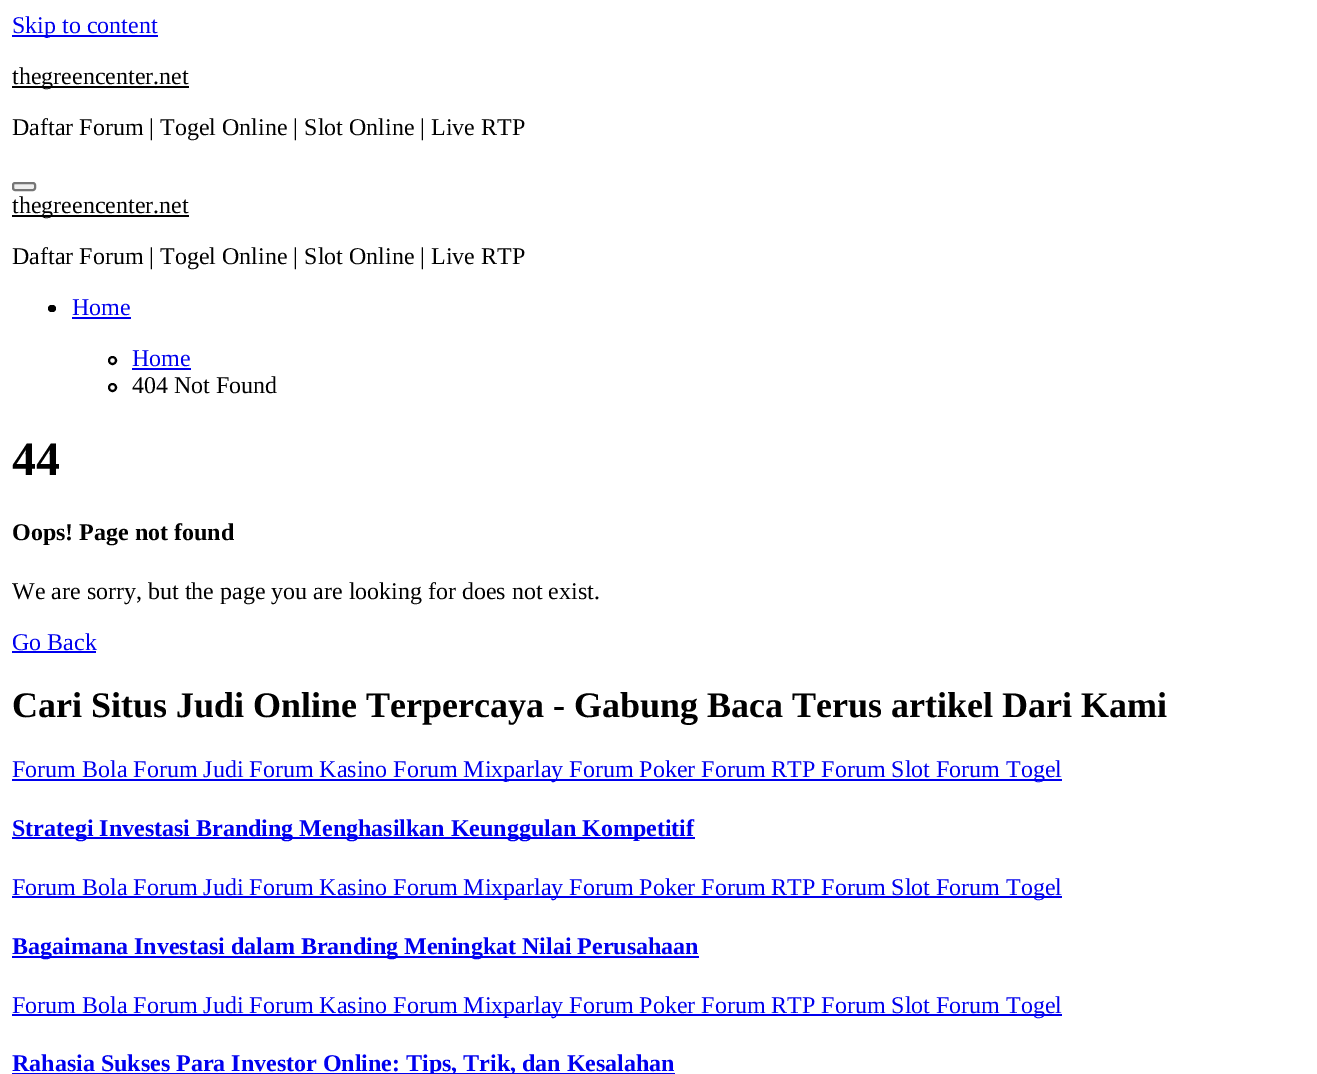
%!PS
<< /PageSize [1317 1074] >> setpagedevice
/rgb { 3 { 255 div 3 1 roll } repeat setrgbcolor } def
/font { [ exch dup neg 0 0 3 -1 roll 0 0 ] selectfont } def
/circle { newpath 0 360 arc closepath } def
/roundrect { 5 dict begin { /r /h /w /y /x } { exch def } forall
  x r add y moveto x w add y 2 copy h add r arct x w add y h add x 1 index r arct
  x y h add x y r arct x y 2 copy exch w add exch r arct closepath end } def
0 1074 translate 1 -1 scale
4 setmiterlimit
255 255 255 rgb
0 0 1317 1074 rectfill
0 0 238 rgb
12 35 146 2 rectfill
0 0 0 rgb
12 86 177 2 rectfill
239 239 239 rgb
13 183 22 7 2 roundrect gsave fill grestore
118 118 118 rgb
2 setlinewidth
stroke
0 0 0 rgb
12 215 177 2 rectfill
48 305 8 7 3.5 roundrect fill
0 0 238 rgb
72 317 59 2 rectfill
0 0 0 rgb
112.5 360.5 3.5 circle stroke
0 0 238 rgb
132 368 59 2 rectfill
0 0 0 rgb
112.5 387.5 3.5 circle stroke
[
  [12 651 84 2 0 0 238]
  [12 779 1050 2 0 0 238]
  [12 837 683 2 0 0 238]
  [12 896 1050 2 0 0 238]
  [12 956 687 2 0 0 238]
  [12 1014 1050 2 0 0 238]
  [12 1073 663 1 0 0 238]
] { aload pop rgb rectfill } forall
/LiberationSerif-Regular 24 font
12 33 moveto (Skip to content) show
0 0 0 rgb
[
  [(thegreencenter.net) 12 84]
  [(Daftar Forum | Togel Online | Slot Online | Live RTP) 12 135]
  [(thegreencenter.net) 12 213]
  [(Daftar Forum | Togel Online | Slot Online | Live RTP) 12 264]
] { aload pop moveto show } forall
0 0 238 rgb
72 315 moveto (Home) show
132 366 moveto (Home) show
0 0 0 rgb
132 393 moveto (404 Not Found) show
/LiberationSerif-Bold 48 font
12 475 moveto (44) show
/LiberationSerif-Bold 24 font
12 540 moveto (Oops! Page not found) show
/LiberationSerif-Regular 24 font
12 599 moveto (We are sorry, but the page you are looking for does not exist.) show
0 0 238 rgb
12 650 moveto (Go Back) show
/LiberationSerif-Bold 36 font
0 0 0 rgb
12 717 moveto (Cari Situs Judi Online Terpercaya - Gabung Baca Terus artikel Dari Kami) show
/LiberationSerif-Regular 24 font
0 0 238 rgb
12 777 moveto (Forum Bola Forum Judi Forum Kasino Forum Mixparlay Forum Poker Forum RTP Forum Slot Forum Togel) show
/LiberationSerif-Bold 24 font
12 836 moveto (Strategi Investasi Branding Menghasilkan Keunggulan Kompetitif) show
/LiberationSerif-Regular 24 font
12 895 moveto (Forum Bola Forum Judi Forum Kasino Forum Mixparlay Forum Poker Forum RTP Forum Slot Forum Togel) show
/LiberationSerif-Bold 24 font
12 954 moveto (Bagaimana Investasi dalam Branding Meningkat Nilai Perusahaan) show
/LiberationSerif-Regular 24 font
12 1013 moveto (Forum Bola Forum Judi Forum Kasino Forum Mixparlay Forum Poker Forum RTP Forum Slot Forum Togel) show
/LiberationSerif-Bold 24 font
12 1071 moveto (Rahasia Sukses Para Investor Online: Tips, Trik, dan Kesalahan) show
showpage
